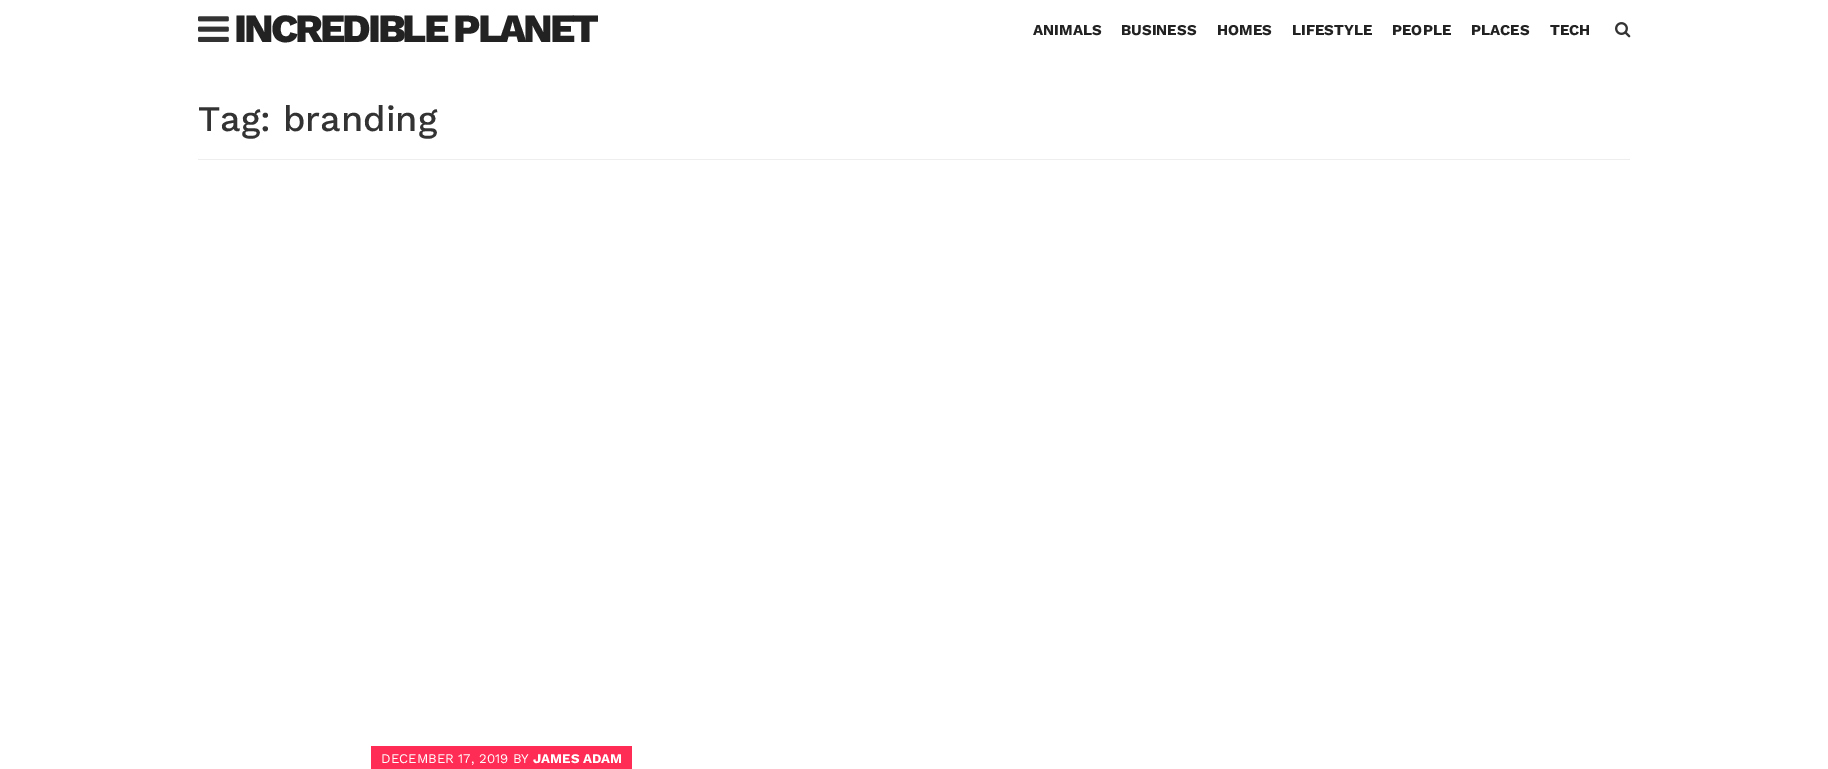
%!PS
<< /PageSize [1828 769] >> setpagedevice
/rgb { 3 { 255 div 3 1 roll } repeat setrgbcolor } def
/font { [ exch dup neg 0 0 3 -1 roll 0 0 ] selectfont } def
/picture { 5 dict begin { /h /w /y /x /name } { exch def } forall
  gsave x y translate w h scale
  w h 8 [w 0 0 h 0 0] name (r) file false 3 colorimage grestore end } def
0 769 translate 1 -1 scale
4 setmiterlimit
255 255 255 rgb
0 0 1828 769 rectfill
(img/1.rgb) 198 16 31 26 picture
(img/2.rgb) 1615 22 16 16 picture
[
  [198 159 1432 1 238 238 238]
  [371 746 162 23 255 45 85]
  [533 746 99 23 255 45 85]
] { aload pop rgb rectfill } forall
/WorkSans-ExtraBold 40 font
34 34 34 rgb
234 42 moveto -3 0 (INCREDIBLE PLANET) ashow
/WorkSans-Bold 15 font
[
  [(ANIMALS) 1033 35]
  [(BUSINESS) 1121 35]
  [(HOMES) 1217 35]
  [(LIFESTYLE) 1292 35]
  [(PEOPLE) 1392 35]
  [(PLACES) 1471 35]
  [(TECH) 1550 35]
] { aload pop moveto show } forall
/WorkSans-Medium 36 font
51 51 51 rgb
198 131 moveto (Tag: branding) show
/WorkSans-Regular 13.25 font
255 255 255 rgb
381 763 moveto (DECEMBER 17, 2019 BY) show
/WorkSans-Bold 13.25 font
533 763 moveto (JAMES ADAM) show
showpage
